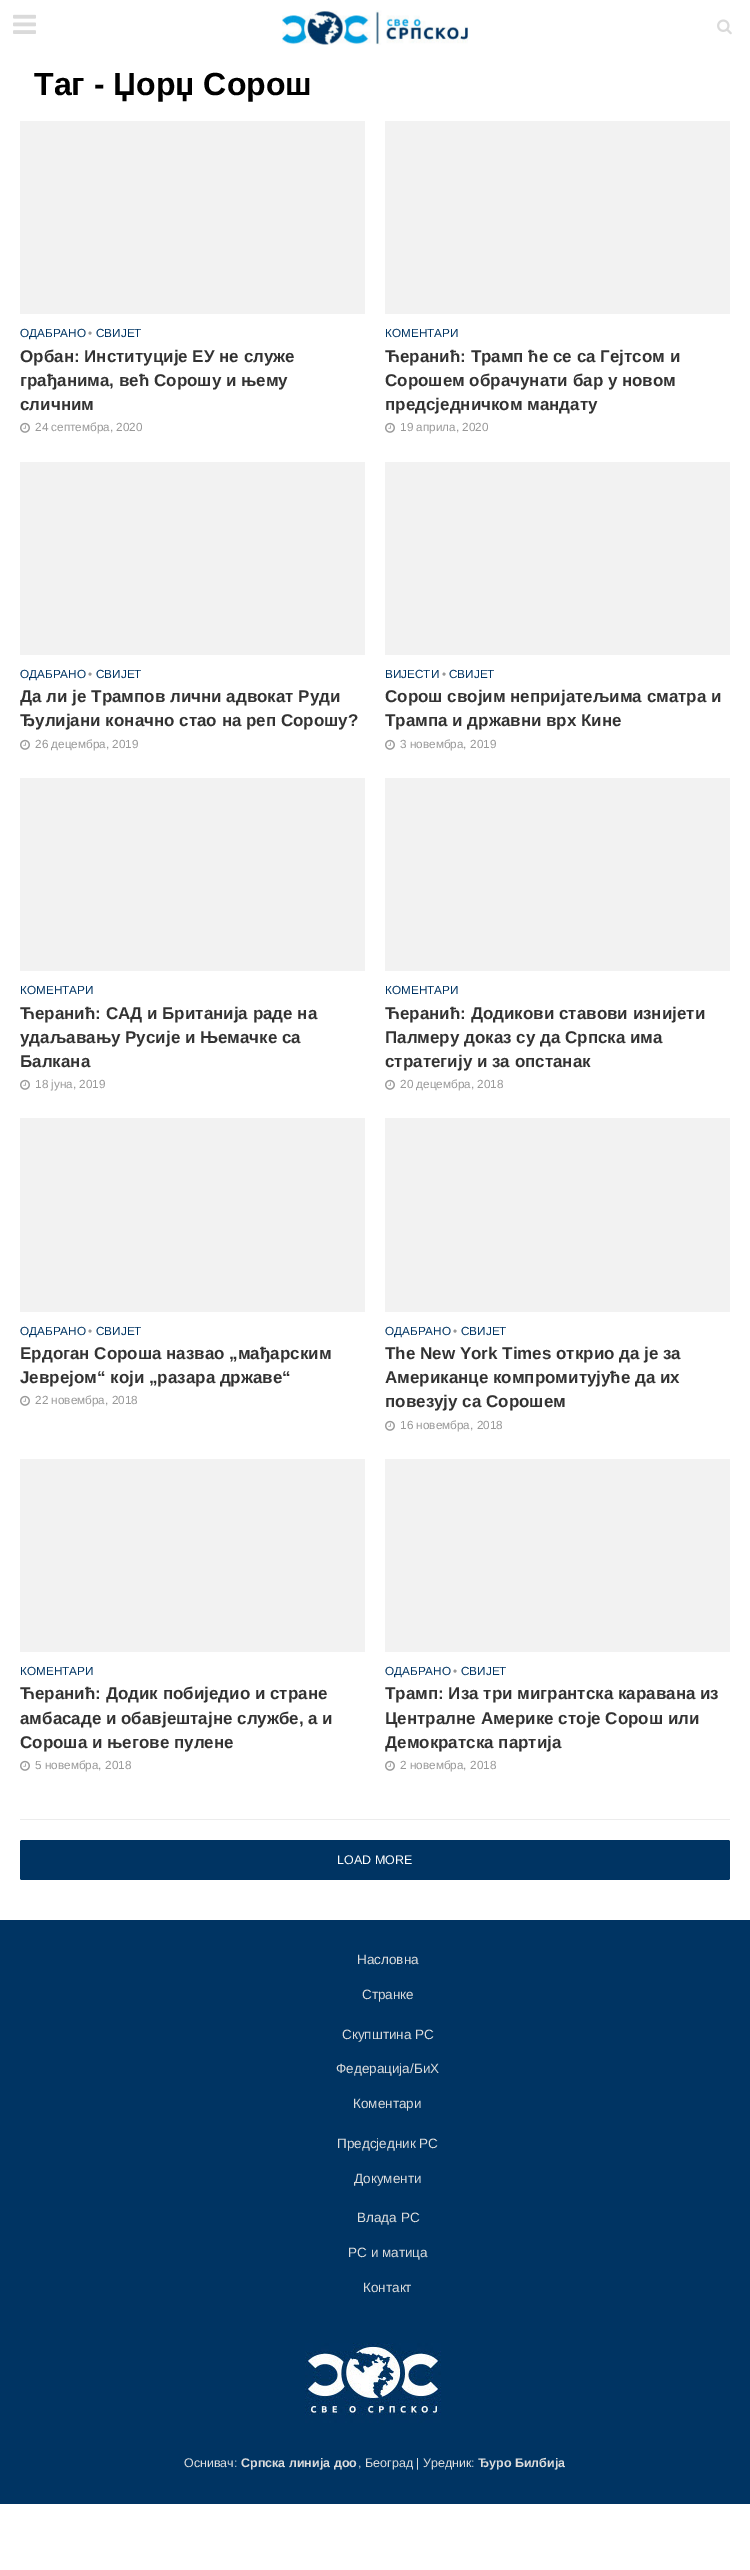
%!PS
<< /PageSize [750 2570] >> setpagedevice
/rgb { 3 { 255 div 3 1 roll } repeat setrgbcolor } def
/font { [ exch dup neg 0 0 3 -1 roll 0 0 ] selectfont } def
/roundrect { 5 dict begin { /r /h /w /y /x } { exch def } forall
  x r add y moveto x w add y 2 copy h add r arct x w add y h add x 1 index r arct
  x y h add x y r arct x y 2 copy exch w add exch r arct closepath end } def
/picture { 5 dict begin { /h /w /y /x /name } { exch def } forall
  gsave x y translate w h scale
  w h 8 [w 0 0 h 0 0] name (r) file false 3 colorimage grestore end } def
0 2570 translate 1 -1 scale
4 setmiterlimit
255 255 255 rgb
0 0 750 2570 rectfill
(img/1.rgb) 13 14 23 20 picture
(img/2.rgb) 282 10 186 35 picture
(img/3.rgb) 717 19 15 16 picture
242 242 242 rgb
20 121 345 193 rectfill
(img/4.rgb) 20 422 10 11 picture
385 121 345 193 rectfill
(img/4.rgb) 385 422 10 11 picture
20 462 345 193 rectfill
(img/4.rgb) 20 739 10 11 picture
385 462 345 193 rectfill
(img/4.rgb) 385 739 10 11 picture
20 778 345 193 rectfill
(img/4.rgb) 20 1079 10 11 picture
385 778 345 193 rectfill
(img/4.rgb) 385 1079 10 11 picture
20 1118 345 194 rectfill
(img/4.rgb) 20 1395 10 11 picture
385 1118 345 194 rectfill
(img/4.rgb) 385 1420 10 11 picture
20 1459 345 193 rectfill
(img/4.rgb) 20 1760 10 11 picture
385 1459 345 193 rectfill
(img/4.rgb) 385 1760 10 11 picture
236 236 236 rgb
20 1819 710 1 rectfill
0 52 99 rgb
20 1840 710 40 2 roundrect fill
0 1920 750 584 rectfill
(img/5.rgb) 305 2343 136 80 picture
/LiberationSans-Bold 32 font
0 0 0 rgb
34 95 moveto (Таг - Џорџ Сорош) show
/LiberationSans-Regular 11.75 font
0 52 99 rgb
20 337 moveto (ОДАБРАНО) show
153 153 153 rgb
88 337 moveto (•) show
0 52 99 rgb
96 337 moveto (СВИЈЕТ) show
/LiberationSans-Bold 17 font
51 51 51 rgb
[
  [(Орбан: Институције ЕУ не служе) 20 362]
  [(грађанима, већ Сорошу и њему) 20 386]
  [(сличним) 20 410]
] { aload pop moveto show } forall
/LiberationSans-Regular 11.75 font
153 153 153 rgb
35 431 moveto (24 септембра, 2020) show
0 52 99 rgb
385 337 moveto (КОМЕНТАРИ) show
/LiberationSans-Bold 17 font
51 51 51 rgb
[
  [(Ћеранић: Трамп ће се са Гејтсом и) 385 362]
  [(Сорошем обрачунати бар у новом) 385 386]
  [(предсједничком мандату) 385 410]
] { aload pop moveto show } forall
/LiberationSans-Regular 11.75 font
153 153 153 rgb
400 431 moveto (19 априла, 2020) show
0 52 99 rgb
20 678 moveto (ОДАБРАНО) show
153 153 153 rgb
88 678 moveto (•) show
0 52 99 rgb
96 678 moveto (СВИЈЕТ) show
/LiberationSans-Bold 17 font
51 51 51 rgb
20 702 moveto (Да ли је Трампов лични адвокат Руди) show
20 726 moveto (Ђулијани коначно стао на реп Сорошу?) show
/LiberationSans-Regular 11.75 font
153 153 153 rgb
35 748 moveto (26 децембра, 2019) show
0 52 99 rgb
385 678 moveto (ВИЈЕСТИ) show
153 153 153 rgb
442 678 moveto (•) show
0 52 99 rgb
449 678 moveto (СВИЈЕТ) show
/LiberationSans-Bold 17 font
51 51 51 rgb
385 702 moveto (Сорош својим непријатељима сматра и) show
385 726 moveto (Трампа и државни врх Кине) show
/LiberationSans-Regular 11.75 font
153 153 153 rgb
400 748 moveto (3 новембра, 2019) show
0 52 99 rgb
20 994 moveto (КОМЕНТАРИ) show
/LiberationSans-Bold 17 font
51 51 51 rgb
[
  [(Ћеранић: САД и Британија раде на) 20 1019]
  [(удаљавању Русије и Њемачке са) 20 1043]
  [(Балкана) 20 1067]
] { aload pop moveto show } forall
/LiberationSans-Regular 11.75 font
153 153 153 rgb
35 1088 moveto (18 јуна, 2019) show
0 52 99 rgb
385 994 moveto (КОМЕНТАРИ) show
/LiberationSans-Bold 17 font
51 51 51 rgb
[
  [(Ћеранић: Додикови ставови изнијети) 385 1019]
  [(Палмеру доказ су да Српска има) 385 1043]
  [(стратегију и за опстанак) 385 1067]
] { aload pop moveto show } forall
/LiberationSans-Regular 11.75 font
153 153 153 rgb
400 1088 moveto (20 децембра, 2018) show
0 52 99 rgb
20 1335 moveto (ОДАБРАНО) show
153 153 153 rgb
88 1335 moveto (•) show
0 52 99 rgb
96 1335 moveto (СВИЈЕТ) show
/LiberationSans-Bold 17 font
51 51 51 rgb
20 1359 moveto (Ердоган Сороша назвао „мађарским) show
20 1383 moveto (Јеврејом“ који „разара државе“) show
/LiberationSans-Regular 11.75 font
153 153 153 rgb
35 1404 moveto (22 новембра, 2018) show
0 52 99 rgb
385 1335 moveto (ОДАБРАНО) show
153 153 153 rgb
453 1335 moveto (•) show
0 52 99 rgb
461 1335 moveto (СВИЈЕТ) show
/LiberationSans-Bold 17 font
51 51 51 rgb
[
  [(The New York Times открио да је за) 385 1359]
  [(Американце компромитујуће да их) 385 1383]
  [(повезују са Сорошем) 385 1407]
] { aload pop moveto show } forall
/LiberationSans-Regular 11.75 font
153 153 153 rgb
400 1429 moveto (16 новембра, 2018) show
0 52 99 rgb
20 1675 moveto (КОМЕНТАРИ) show
/LiberationSans-Bold 17 font
51 51 51 rgb
[
  [(Ћеранић: Додик побиједио и стране) 20 1699]
  [(амбасаде и обавјештајне службе, а и) 20 1724]
  [(Сороша и његове пулене) 20 1748]
] { aload pop moveto show } forall
/LiberationSans-Regular 11.75 font
153 153 153 rgb
35 1769 moveto (5 новембра, 2018) show
0 52 99 rgb
385 1675 moveto (ОДАБРАНО) show
153 153 153 rgb
453 1675 moveto (•) show
0 52 99 rgb
461 1675 moveto (СВИЈЕТ) show
/LiberationSans-Bold 17 font
51 51 51 rgb
[
  [(Трамп: Иза три мигрантска каравана из) 385 1699]
  [(Централне Америке стоје Сорош или) 385 1724]
  [(Демократска партија) 385 1748]
] { aload pop moveto show } forall
/LiberationSans-Regular 11.75 font
153 153 153 rgb
400 1769 moveto (2 новембра, 2018) show
/LiberationSans-Regular 12.5 font
255 255 255 rgb
337 1864 moveto (LOAD MORE) show
/LiberationSans-Regular 13.5 font
221 221 221 rgb
[
  [(Насловна) 357 1964]
  [(Странке) 362 1999]
  [(Скупштина РС) 342 2039]
  [(Федерација/БиХ) 336 2073]
  [(Коментари) 353 2108]
  [(Предсједник РС) 337 2148]
  [(Документи) 354 2183]
  [(Влада РС) 357 2222]
  [(РС и матица) 348 2257]
  [(Контакт) 363 2292]
] { aload pop moveto show } forall
/LiberationSans-Regular 12.5 font
184 2467 moveto (Оснивач:) show
/LiberationSans-Bold 12.5 font
241 2467 moveto (Српска линија доо) show
/LiberationSans-Regular 12.5 font
358 2467 moveto (, Београд | Уредник:) show
/LiberationSans-Bold 12.5 font
478 2467 moveto (Ђуро Билбија) show
showpage
